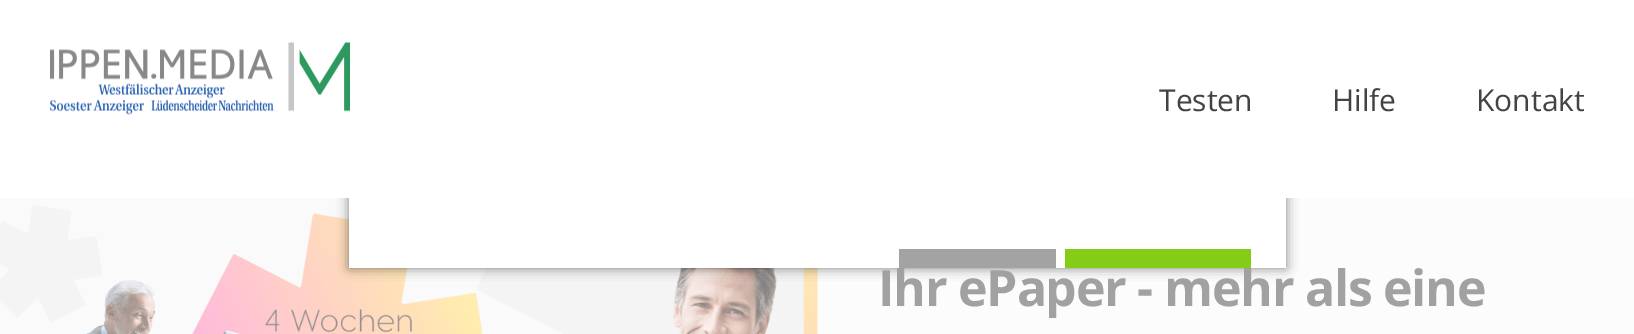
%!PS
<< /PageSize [1634 334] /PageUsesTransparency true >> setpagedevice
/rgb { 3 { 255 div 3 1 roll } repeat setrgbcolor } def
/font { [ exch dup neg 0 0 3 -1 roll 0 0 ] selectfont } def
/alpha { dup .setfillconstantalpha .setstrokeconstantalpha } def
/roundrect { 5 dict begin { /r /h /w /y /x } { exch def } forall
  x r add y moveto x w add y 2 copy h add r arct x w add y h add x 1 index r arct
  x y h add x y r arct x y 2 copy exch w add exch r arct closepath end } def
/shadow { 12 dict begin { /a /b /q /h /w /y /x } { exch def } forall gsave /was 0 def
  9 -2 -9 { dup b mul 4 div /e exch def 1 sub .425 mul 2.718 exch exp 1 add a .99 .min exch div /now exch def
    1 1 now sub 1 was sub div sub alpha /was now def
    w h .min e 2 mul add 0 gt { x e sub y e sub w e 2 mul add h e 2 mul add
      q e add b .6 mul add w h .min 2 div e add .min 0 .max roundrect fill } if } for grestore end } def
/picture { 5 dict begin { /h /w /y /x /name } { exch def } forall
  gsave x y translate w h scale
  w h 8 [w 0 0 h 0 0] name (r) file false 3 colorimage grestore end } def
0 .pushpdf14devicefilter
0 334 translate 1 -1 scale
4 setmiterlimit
252 252 252 rgb
0 0 1634 334 rectfill
(img/2.rgb) 0 198 818 136 picture
0 0 0 rgb
349 68 937 200 0 6 0.5 shadow
[
  [349 198 937 70 255 255 255]
  [899 249 157 19 163 163 163]
  [1065 249 186 19 132 204 22]
  [0 0 1634 198 255 255 255]
] { aload pop rgb rectfill } forall
(img/1.rgb) 50 42 300 73 picture
/OpenSans-Regular 30 font
67 67 67 rgb
[
  [(Testen) 1159 111]
  [(Hilfe) 1332 111]
  [(Kontakt) 1476 111]
] { aload pop moveto show } forall
/OpenSans-Bold 50 font
161 161 161 rgb
878 306 moveto -1.25 0 (Ihr ePaper - mehr als eine) ashow
.poppdf14devicefilter showpage
